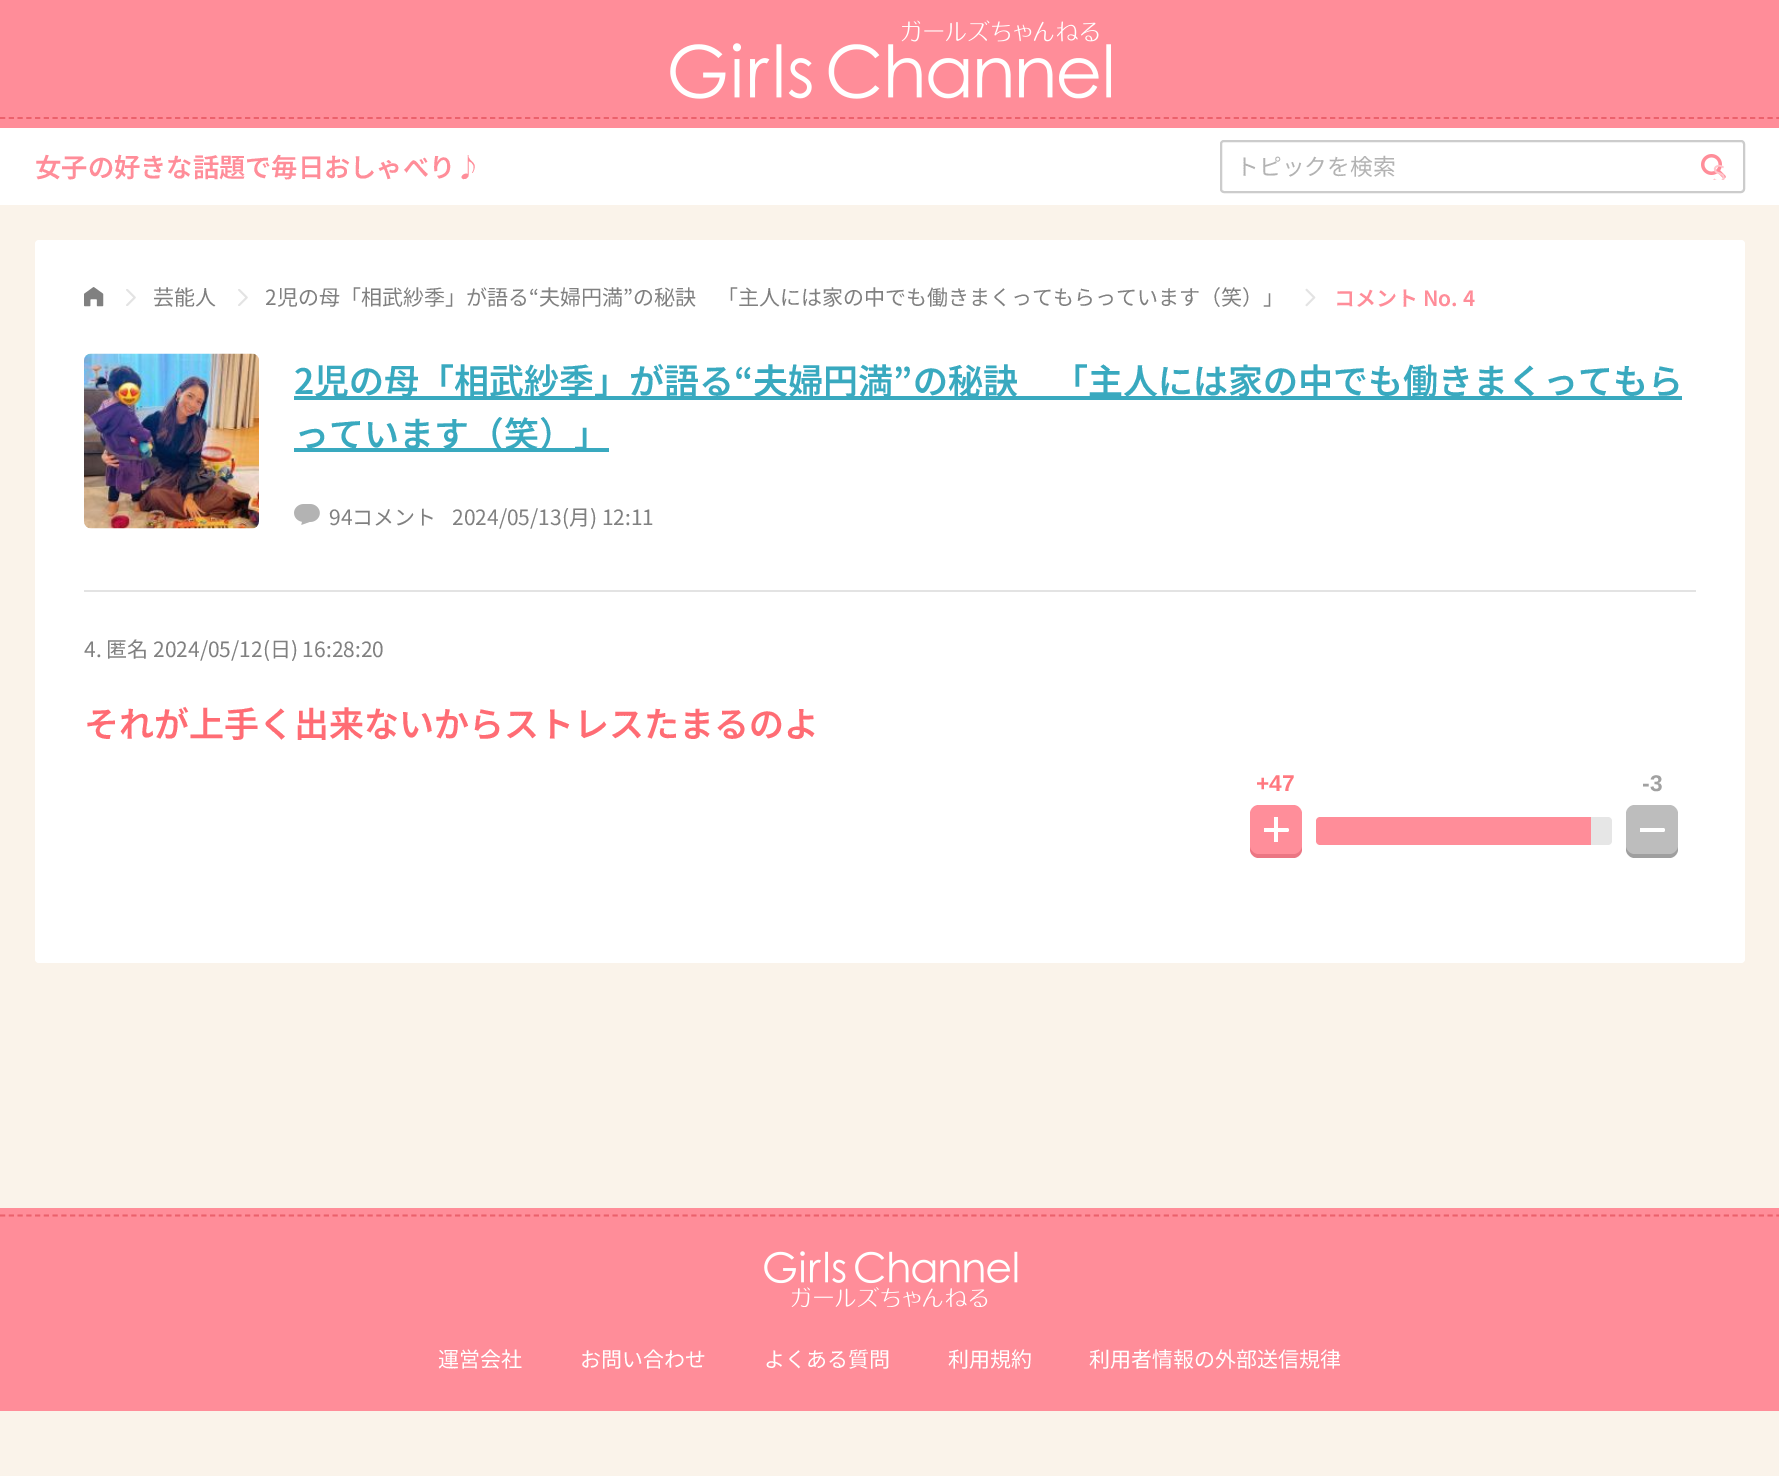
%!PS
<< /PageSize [1779 1476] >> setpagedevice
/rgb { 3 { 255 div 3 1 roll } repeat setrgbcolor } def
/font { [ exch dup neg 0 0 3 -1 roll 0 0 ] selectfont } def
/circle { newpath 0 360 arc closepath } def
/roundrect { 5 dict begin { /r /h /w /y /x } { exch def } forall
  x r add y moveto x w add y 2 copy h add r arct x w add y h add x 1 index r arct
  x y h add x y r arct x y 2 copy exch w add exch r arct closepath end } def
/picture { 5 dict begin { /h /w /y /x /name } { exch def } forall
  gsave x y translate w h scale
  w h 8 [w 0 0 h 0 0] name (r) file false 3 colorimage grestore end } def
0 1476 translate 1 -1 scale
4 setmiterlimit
250 243 234 rgb
0 0 1779 1476 rectfill
255 141 153 rgb
0 0 1779 128 rectfill
235 97 108 rgb
1.8 setlinewidth
[5.25 3.5] 0 setdash
0 118 moveto 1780 118 lineto stroke
(img/1.rgb) 670 20 441 79 picture
255 255 255 rgb
0 128 1779 77 rectfill
204 204 204 rgb
2 setlinewidth
[] 0 setdash
1221 141 523 51 3 roundrect stroke
(img/2.rgb) 1701 154 25 25 picture
255 255 255 rgb
35 240 1710 723 4 roundrect fill
(img/3.rgb) 84 287 20 20 picture
(img/4.rgb) 126 289 10 17 picture
(img/4.rgb) 238 289 10 17 picture
(img/5.rgb) 1305 288 11 19 picture
(img/6.rgb) 84 353 175 176 picture
57 169 191 rgb
294 396 1388 4 rectfill
294 448 315 4 rectfill
(img/7.rgb) 294 504 26 21 picture
227 227 227 rgb
84 590 1612 2 rectfill
235 118 131 rgb
1250 809 52 49 9 roundrect fill
255 142 154 rgb
1250 805 52 49 9 roundrect fill
255 255 255 rgb
1264 828 24 4 rectfill
1274 817 4 25 rectfill
1287 830 2 circle fill
159 159 159 rgb
1626 809 52 49 9 roundrect fill
189 189 189 rgb
1626 805 52 49 9 roundrect fill
255 255 255 rgb
1640 828 24 4 rectfill
1663 830 2 circle fill
255 141 153 rgb
1320 817 271 28 rectfill
1320 817 moveto 1320 845 lineto 1318 845 1316 843 1316 841 curveto 1316 821 lineto 1316 819 1318 817 1320 817 curveto closepath fill
230 230 230 rgb
1591 817 17 28 rectfill
1608 817 moveto 1610 817 1612 819 1612 821 curveto 1612 841 lineto 1612 843 1610 845 1608 845 curveto closepath fill
255 141 153 rgb
0 1208 1779 203 rectfill
235 97 108 rgb
1.8 setlinewidth
[5.25 3.5] 0 setdash
0 1215.5 moveto 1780 1215.5 lineto stroke
(img/8.rgb) 764 1251 254 56 picture
/NotoSansJP-SemiBold 26.25 font
255 141 153 rgb
35 177 moveto (女子の好きな話題で毎日おしゃべり♪) show
/NotoSansJP-Regular 22.75 font
179 179 179 rgb
1236 175 moveto (トピックを検索) show
gsave
1701 154 25 26 rectclip
/NotoSansJP-Regular 23 font
255 198 204 rgb
1712 182 moveto (S) show
grestore
/NotoSansJP-Regular 21 font
128 128 128 rgb
153 305 moveto (芸能人) show
265 305 moveto (2児の母「相武紗季」が語る“夫婦円満”の秘訣　「主人には家の中でも働きまくってもらっています（笑）」) show
/NotoSansJP-SemiBold 21 font
255 141 153 rgb
1334 306 moveto (コメント No. 4) show
/NotoSansJP-SemiBold 35 font
57 169 191 rgb
294 394 moveto (2児の母「相武紗季」が語る“夫婦円満”の秘訣　「主人には家の中でも働きまくってもら) show
294 447 moveto (っています（笑）」) show
/NotoSansJP-Regular 21 font
128 128 128 rgb
[
  [(94コメント) 329 525]
  [(2024/05/13\(月\) 12:11) 452 525]
  [(4. 匿名 2024/05/12\(日\) 16:28:20) 84 657]
] { aload pop moveto show } forall
/NotoSansJP-SemiBold 35 font
255 108 116 rgb
84 737 moveto (それが上手く出来ないからストレスたまるのよ) show
/LiberationSans-Bold 22.75 font
255 120 127 rgb
1256 791 moveto (+47) show
161 161 161 rgb
1642 791 moveto (-3) show
/NotoSansJP-Regular 21 font
255 255 255 rgb
[
  [(運営会社) 438 1367]
  [(お問い合わせ) 580 1367]
  [(よくある質問) 764 1367]
  [(利用規約) 948 1367]
  [(利⽤者情報の外部送信規律) 1089 1367]
] { aload pop moveto show } forall
showpage
